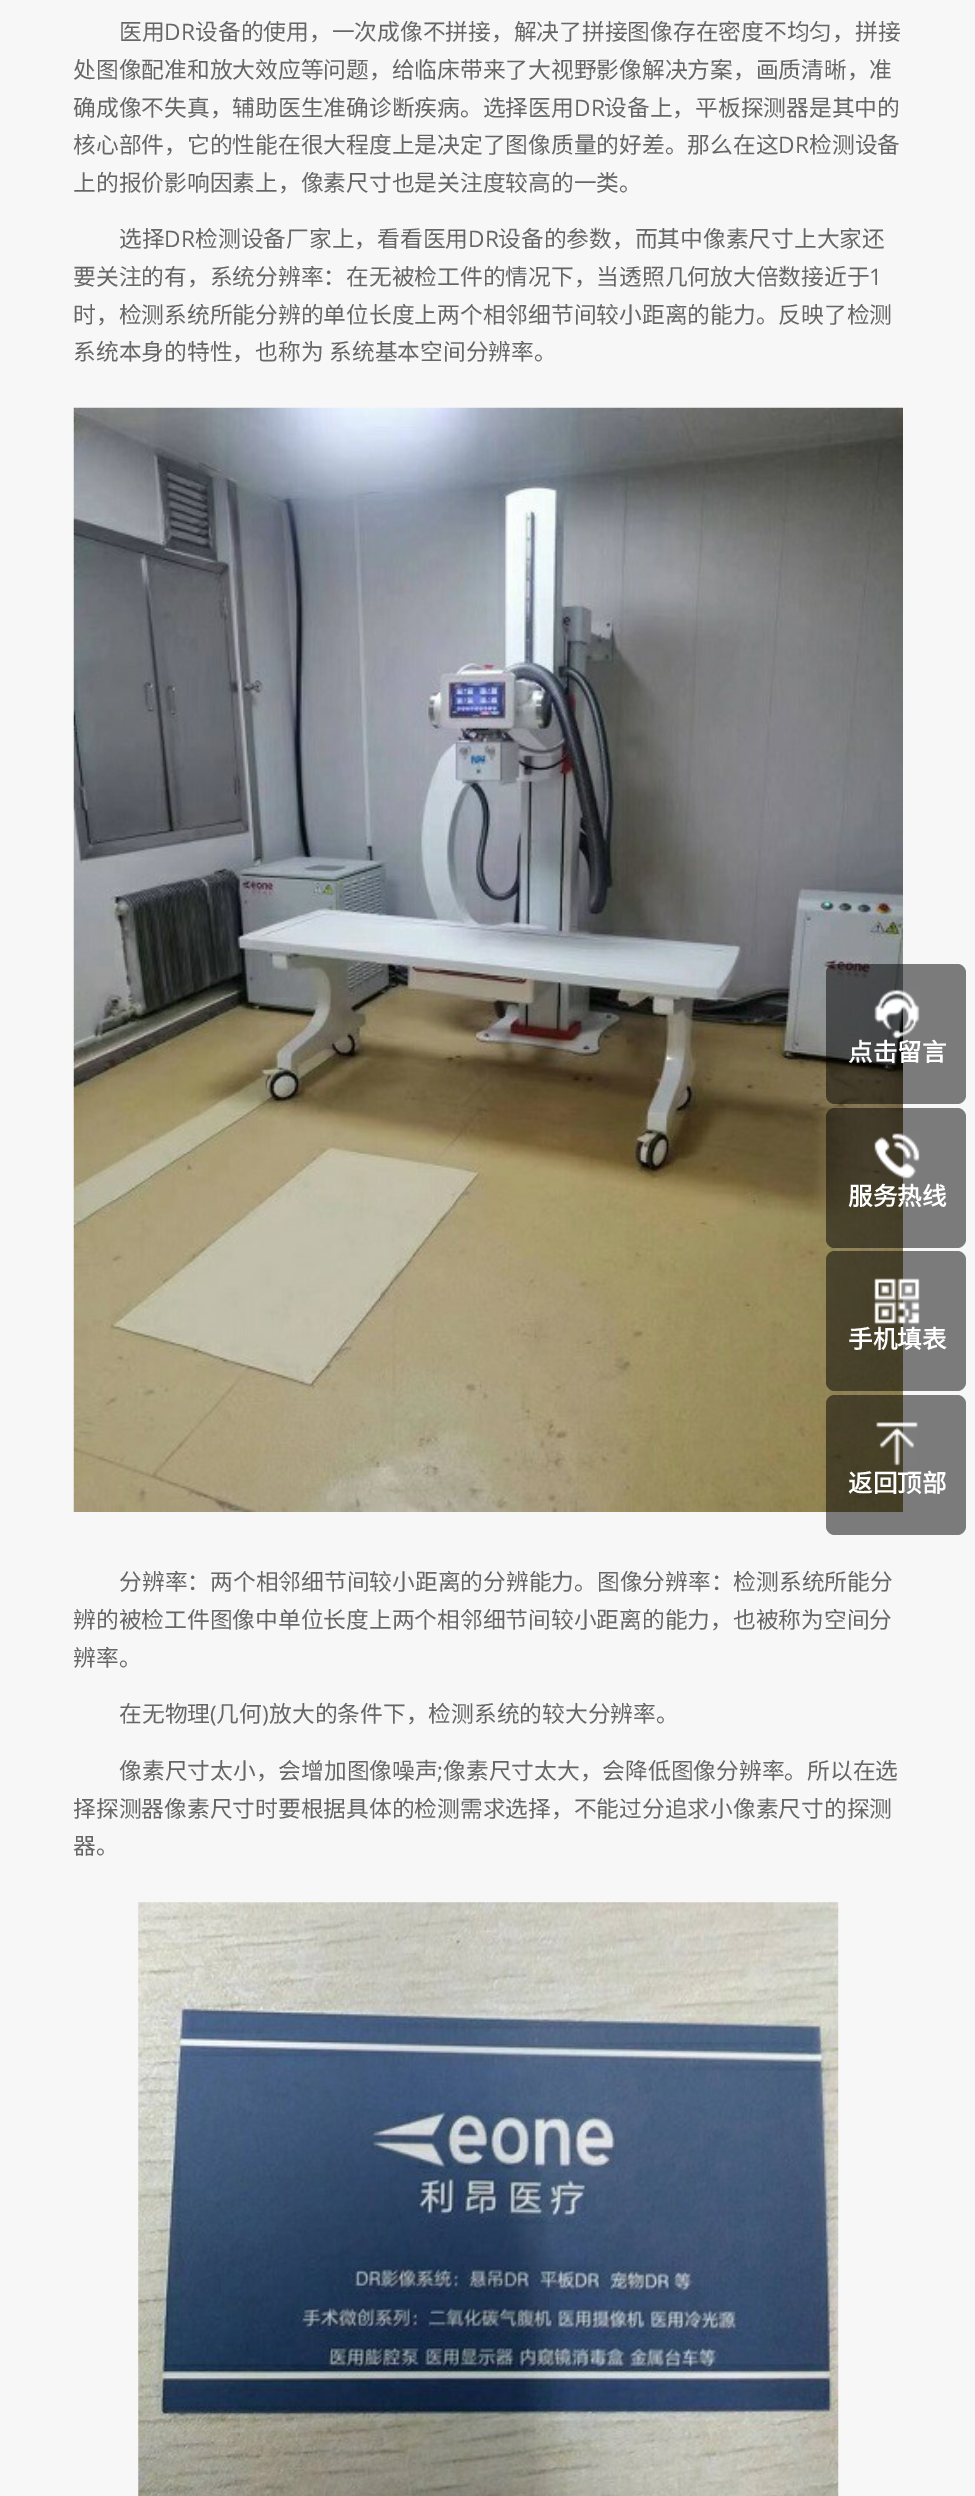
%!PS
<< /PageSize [975 2496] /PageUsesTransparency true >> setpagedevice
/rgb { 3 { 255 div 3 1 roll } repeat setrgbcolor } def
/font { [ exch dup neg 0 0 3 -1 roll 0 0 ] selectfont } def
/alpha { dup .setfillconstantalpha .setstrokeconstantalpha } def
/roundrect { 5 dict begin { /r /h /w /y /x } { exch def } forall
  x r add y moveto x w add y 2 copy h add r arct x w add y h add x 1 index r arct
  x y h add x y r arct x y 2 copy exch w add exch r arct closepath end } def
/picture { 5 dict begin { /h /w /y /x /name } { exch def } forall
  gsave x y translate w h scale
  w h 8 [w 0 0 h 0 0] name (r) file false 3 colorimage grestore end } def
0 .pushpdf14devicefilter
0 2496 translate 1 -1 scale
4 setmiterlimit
247 247 247 rgb
0 0 975 2496 rectfill
(img/1.rgb) 73 407 830 1105 picture
(img/2.rgb) 138 1902 701 594 picture
0.5 alpha
0 0 0 rgb
826 964 140 140 9 roundrect fill
1 alpha
(img/3.rgb) 874 989 46 50 picture
0.5 alpha
826 1108 140 140 9 roundrect fill
1 alpha
(img/4.rgb) 874 1133 46 46 picture
0.5 alpha
826 1251 140 140 9 roundrect fill
1 alpha
(img/5.rgb) 874 1278 46 47 picture
0.5 alpha
826 1395 140 140 9 roundrect fill
1 alpha
(img/6.rgb) 876 1422 42 44 picture
/NotoSansCJKSC-Regular 22.75 font
102 102 102 rgb
119 40 moveto (医用) show
/OpenSans-Regular 22.75 font
164 40 moveto (DR) show
/NotoSansCJKSC-Regular 22.75 font
[
  [(设备的使用，一次成像不拼接，解决了拼接图像存在密度不均匀，拼接) 195 40]
  [(处图像配准和放大效应等问题，给临床带来了大视野影像解决方案，画质清晰，准) 73 78]
  [(确成像不失真，辅助医生准确诊断疾病。选择医用) 73 116]
] { aload pop moveto show } forall
/OpenSans-Regular 22.75 font
574 116 moveto (DR) show
/NotoSansCJKSC-Regular 22.75 font
604 116 moveto (设备上，平板探测器是其中的) show
73 153 moveto (核心部件，它的性能在很大程度上是决定了图像质量的好差。那么在这) show
/OpenSans-Regular 22.75 font
778 153 moveto (DR) show
/NotoSansCJKSC-Regular 22.75 font
[
  [(检测设备) 809 153]
  [(上的报价影响因素上，像素尺寸也是关注度较高的一类。) 73 191]
  [(选择) 119 247]
] { aload pop moveto show } forall
/OpenSans-Regular 22.75 font
164 247 moveto (DR) show
/NotoSansCJKSC-Regular 22.75 font
195 247 moveto (检测设备厂家上，看看医用) show
/OpenSans-Regular 22.75 font
468 247 moveto (DR) show
/NotoSansCJKSC-Regular 22.75 font
498 247 moveto (设备的参数，而其中像素尺寸上大家还) show
73 285 moveto (要关注的有，系统分辨率：在无被检工件的情况下，当透照几何放大倍数接近于) show
/OpenSans-Regular 22.75 font
869 285 moveto (1) show
/NotoSansCJKSC-Regular 22.75 font
[
  [(时，检测系统所能分辨的单位长度上两个相邻细节间较小距离的能力。反映了检测) 73 323]
  [(系统本身的特性，也称为) 73 360]
  [(系统基本空间分辨率。) 329 360]
  [(分辨率：两个相邻细节间较小距离的分辨能力。图像分辨率：检测系统所能分) 119 1590]
  [(辨的被检工件图像中单位长度上两个相邻细节间较小距离的能力，也被称为空间分) 73 1628]
  [(辨率。) 73 1666]
  [(在无物理) 119 1722]
] { aload pop moveto show } forall
/OpenSans-Regular 22.75 font
210 1722 moveto (\() show
/NotoSansCJKSC-Regular 22.75 font
216 1722 moveto (几何) show
/OpenSans-Regular 22.75 font
262 1722 moveto (\)) show
/NotoSansCJKSC-Regular 22.75 font
269 1722 moveto (放大的条件下，检测系统的较大分辨率。) show
119 1779 moveto (像素尺寸太小，会增加图像噪声) show
/OpenSans-Regular 22.75 font
437 1779 moveto (;) show
/NotoSansCJKSC-Regular 22.75 font
[
  [(像素尺寸太大，会降低图像分辨率。所以在选) 443 1779]
  [(择探测器像素尺寸时要根据具体的检测需求选择，不能过分追求小像素尺寸的探测) 73 1817]
  [(器。) 73 1854]
] { aload pop moveto show } forall
/NotoSansCJKSC-Bold 24.5 font
255 255 255 rgb
[
  [(点击留言) 848 1061]
  [(服务热线) 848 1205]
  [(手机填表) 848 1348]
  [(返回顶部) 848 1492]
] { aload pop moveto show } forall
.poppdf14devicefilter showpage
